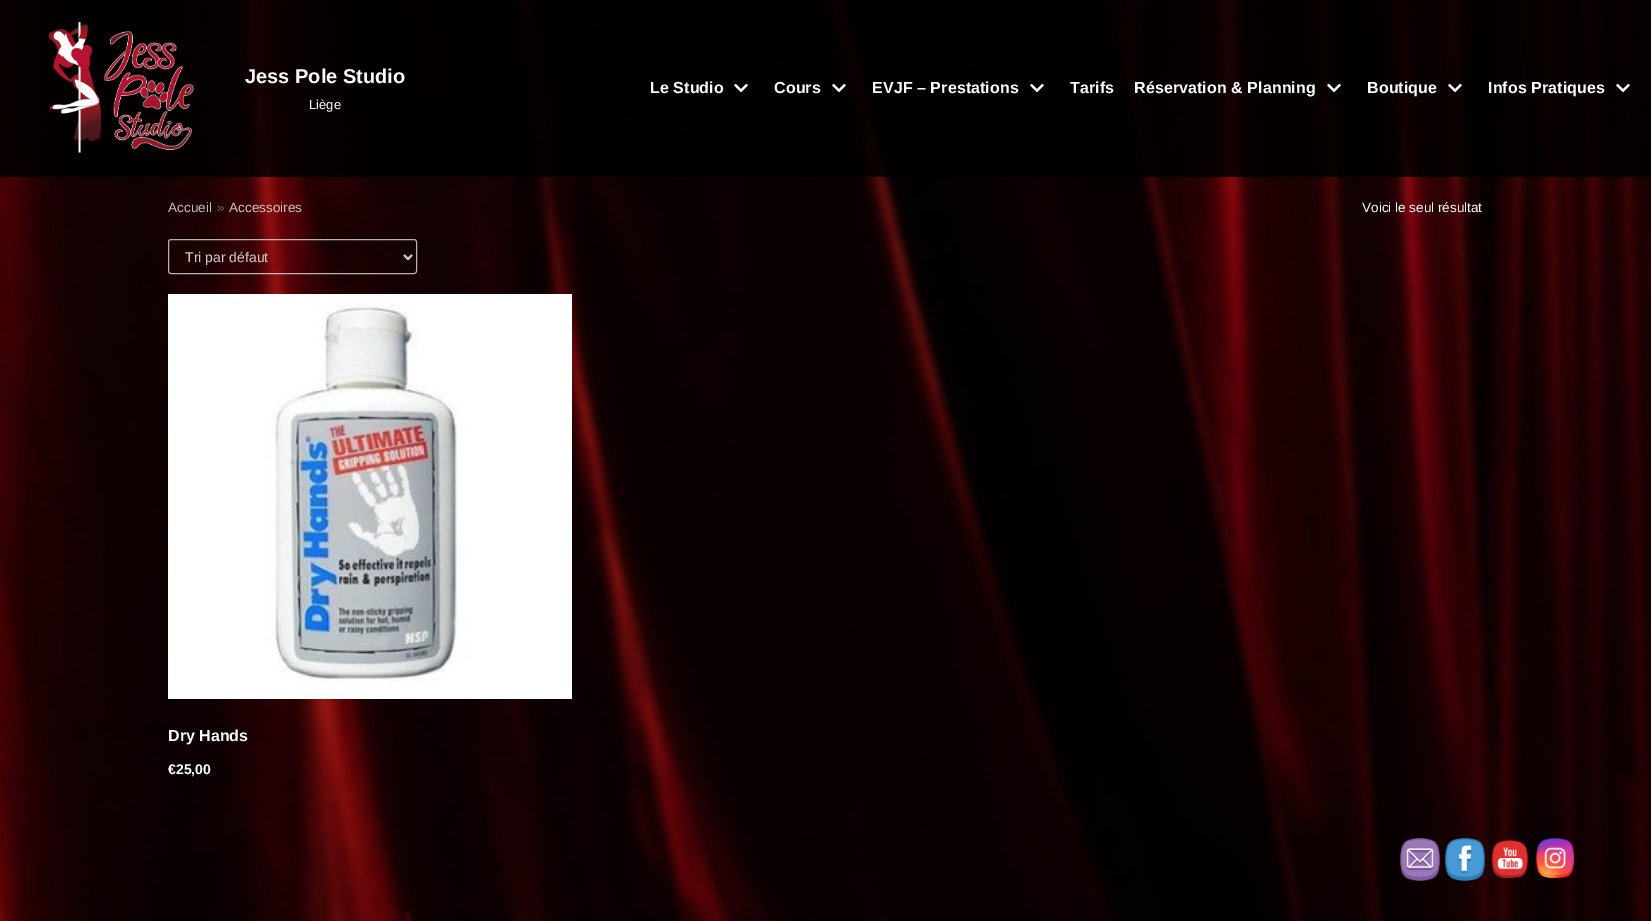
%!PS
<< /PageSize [1651 921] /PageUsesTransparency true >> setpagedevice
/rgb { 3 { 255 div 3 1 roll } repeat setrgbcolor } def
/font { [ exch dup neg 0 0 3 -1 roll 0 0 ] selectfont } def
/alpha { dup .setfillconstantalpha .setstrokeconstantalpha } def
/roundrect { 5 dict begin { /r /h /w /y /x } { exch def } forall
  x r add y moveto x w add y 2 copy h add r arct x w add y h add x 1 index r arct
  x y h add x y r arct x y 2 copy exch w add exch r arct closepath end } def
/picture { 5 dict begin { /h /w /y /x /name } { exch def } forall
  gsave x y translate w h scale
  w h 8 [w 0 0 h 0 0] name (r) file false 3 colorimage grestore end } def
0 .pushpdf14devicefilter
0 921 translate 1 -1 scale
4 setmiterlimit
255 255 255 rgb
0 0 1651 921 rectfill
(img/1.rgb) 0 0 1651 921 picture
0.85 alpha
0 0 0 rgb
0 0 1651 177 rectfill
1 alpha
(img/2.rgb) 48 22 146 131 picture
(img/3.rgb) 734 83 14 10 picture
(img/4.rgb) 832 83 14 10 picture
(img/5.rgb) 1030 83 14 10 picture
(img/6.rgb) 1327 83 14 10 picture
(img/7.rgb) 1448 83 14 10 picture
(img/8.rgb) 1616 83 14 10 picture
0.8 alpha
221 221 221 rgb
168.5 239.5 248 34 2.5 roundrect stroke
1 alpha
208 204 204 rgb
2 setlinewidth
404 255 moveto 408 259 lineto 412 255 lineto stroke
(img/9.rgb) 168 294 404 405 picture
(img/10.rgb) 1400 838 40 43 picture
(img/11.rgb) 1445 838 40 43 picture
(img/12.rgb) 1491 840 37 38 picture
(img/13.rgb) 1535 838 40 40 picture
/LiberationSans-Bold 20 font
255 255 255 rgb
245 83 moveto (Jess Pole Studio) show
/LiberationSans-Regular 13 font
309 109 moveto (Liège) show
/LiberationSans-Bold 16 font
650 93 moveto 0.1 0 (Le Studio) ashow
774 93 moveto 0.1 0 (Cours) ashow
872 93 moveto 0.1 0 (EVJF – Prestations) ashow
1070 93 moveto 0.1 0 (Tarifs) ashow
1134 93 moveto 0.1 0 (Réservation & Planning) ashow
1367 93 moveto 0.1 0 (Boutique) ashow
1488 93 moveto 0.1 0 (Infos Pratiques) ashow
/LiberationSans-Regular 13.5 font
198 191 192 rgb
168 212 moveto (Accueil) show
119 96 98 rgb
217 212 moveto (») show
212 192 193 rgb
229 212 moveto (Accessoires) show
255 255 255 rgb
1362 212 moveto (Voici le seul résultat) show
/LiberationSans-Regular 14 font
213 204 205 rgb
185 262 moveto (Tri par défaut) show
/LiberationSans-Bold 16 font
255 255 255 rgb
168 741 moveto (Dry Hands) show
/LiberationSans-Bold 14 font
168 774 moveto (€25,00) show
/LiberationSans-Regular 16 font
78 4 6 rgb
404 921 moveto (s) show
.poppdf14devicefilter showpage
